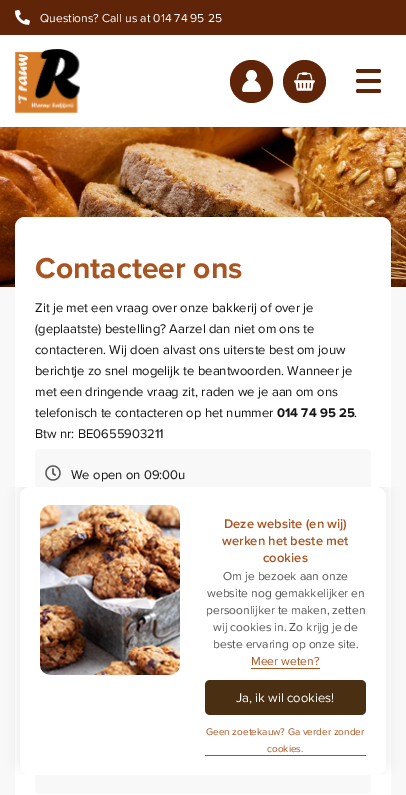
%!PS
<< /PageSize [406 795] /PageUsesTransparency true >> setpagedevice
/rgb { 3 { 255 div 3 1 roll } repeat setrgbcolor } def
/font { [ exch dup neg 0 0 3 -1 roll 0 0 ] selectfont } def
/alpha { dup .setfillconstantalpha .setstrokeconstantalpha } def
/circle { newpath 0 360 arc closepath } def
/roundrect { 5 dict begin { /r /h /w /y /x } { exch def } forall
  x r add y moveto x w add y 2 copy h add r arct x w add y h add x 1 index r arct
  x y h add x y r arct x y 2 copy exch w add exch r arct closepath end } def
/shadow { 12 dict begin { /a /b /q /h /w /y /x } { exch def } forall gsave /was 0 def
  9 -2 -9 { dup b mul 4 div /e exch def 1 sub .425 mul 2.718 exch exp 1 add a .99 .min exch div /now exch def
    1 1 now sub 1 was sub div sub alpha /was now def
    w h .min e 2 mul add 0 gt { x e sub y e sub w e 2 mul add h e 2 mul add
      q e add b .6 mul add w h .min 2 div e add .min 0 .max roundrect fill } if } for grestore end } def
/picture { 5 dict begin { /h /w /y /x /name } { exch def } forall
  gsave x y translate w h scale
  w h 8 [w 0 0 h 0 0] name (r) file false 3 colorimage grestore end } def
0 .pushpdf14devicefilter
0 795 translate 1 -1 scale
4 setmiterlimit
248 248 248 rgb
0 0 406 795 rectfill
96 36 8 rgb
0 0 406 35 rectfill
(img/1.rgb) 15 9 15 16 picture
255 255 255 rgb
0 35 406 92 rectfill
(img/2.rgb) 15 49 65 64 picture
96 36 8 rgb
251.5 81.5 21.5 circle fill
(img/3.rgb) 242 70 19 22 picture
304.5 81.5 21.5 circle fill
(img/4.rgb) 294 72 21 19 picture
356 69 25 4 2 roundrect fill
356 79 25 4 2 roundrect fill
356 89 25 4 2 roundrect fill
(img/5.rgb) 0 127 406 160 picture
255 255 255 rgb
15 217 376 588 10 roundrect fill
248 248 248 rgb
35 449 336 50 5 roundrect fill
(img/6.rgb) 45 465 16 16 picture
35 623 336 171 5 roundrect fill
gsave
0 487 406 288 rectclip
20 20 20 rgb
19 481 368 290 11 6 0.09 shadow
grestore
255 255 255 rgb
20 487 366 288 10 roundrect fill
(img/7.rgb) 40 505 140 170 picture
169 85 33 rgb
251 668 69 1 rectfill
75 47 18 rgb
205 680 161 35 5 roundrect fill
169 85 33 rgb
205 755 161 1 rectfill
/ProximaNova-Regular 12 font
255 255 255 rgb
40 22 moveto (Questions? Call us at 014 74 95 25) show
/ProximaNova-Bold 30 font
169 85 33 rgb
35 278 moveto (Contacteer ons) show
/ProximaNova-Regular 13 font
20 20 20 rgb
[
  [(Zit je met een vraag over onze bakkerij of over je) 35 312]
  [(\(geplaatste\) bestelling? Aarzel dan niet om ons te) 35 333]
  [(contacteren. Wij doen alvast ons uiterste best om jouw) 35 354]
  [(berichtje zo snel mogelijk te beantwoorden. Wanneer je) 35 375]
  [(met een dringende vraag zit, raden we je aan om ons) 35 396]
  [(telefonisch te contacteren op het nummer) 35 417]
] { aload pop moveto show } forall
/ProximaNova-Bold 13 font
277 417 moveto (014 74 95 25) show
/ProximaNova-Regular 13 font
[
  [(.) 354 417]
  [(Btw nr: BE0655903211) 35 438]
  [(We open on 09:00u) 71 479]
] { aload pop moveto show } forall
/ProximaNova-SemiBold 13 font
169 85 33 rgb
[
  [(Deze website \(en wij\)) 224 528]
  [(werken het beste met) 222 545]
  [(cookies) 263 562]
] { aload pop moveto show } forall
/ProximaNova-Regular 12 font
84 84 84 rgb
[
  [(Om je bezoek aan onze) 223 580]
  [(website nog gemakkelijker en) 207 597]
  [(persoonlijker te maken, zetten) 206 614]
  [(wij cookies in. Zo krijg je de) 213 631]
  [(beste ervaring op onze site.) 213 648]
] { aload pop moveto show } forall
169 85 33 rgb
251 665 moveto (Meer weten?) show
/ProximaNova-Regular 13 font
255 255 255 rgb
236 702 moveto (Ja, ik wil cookies!) show
/ProximaNova-Regular 10 font
169 85 33 rgb
206 735 moveto (Geen zoetekauw? Ga verder zonder) show
267 752 moveto (cookies.) show
.poppdf14devicefilter showpage
